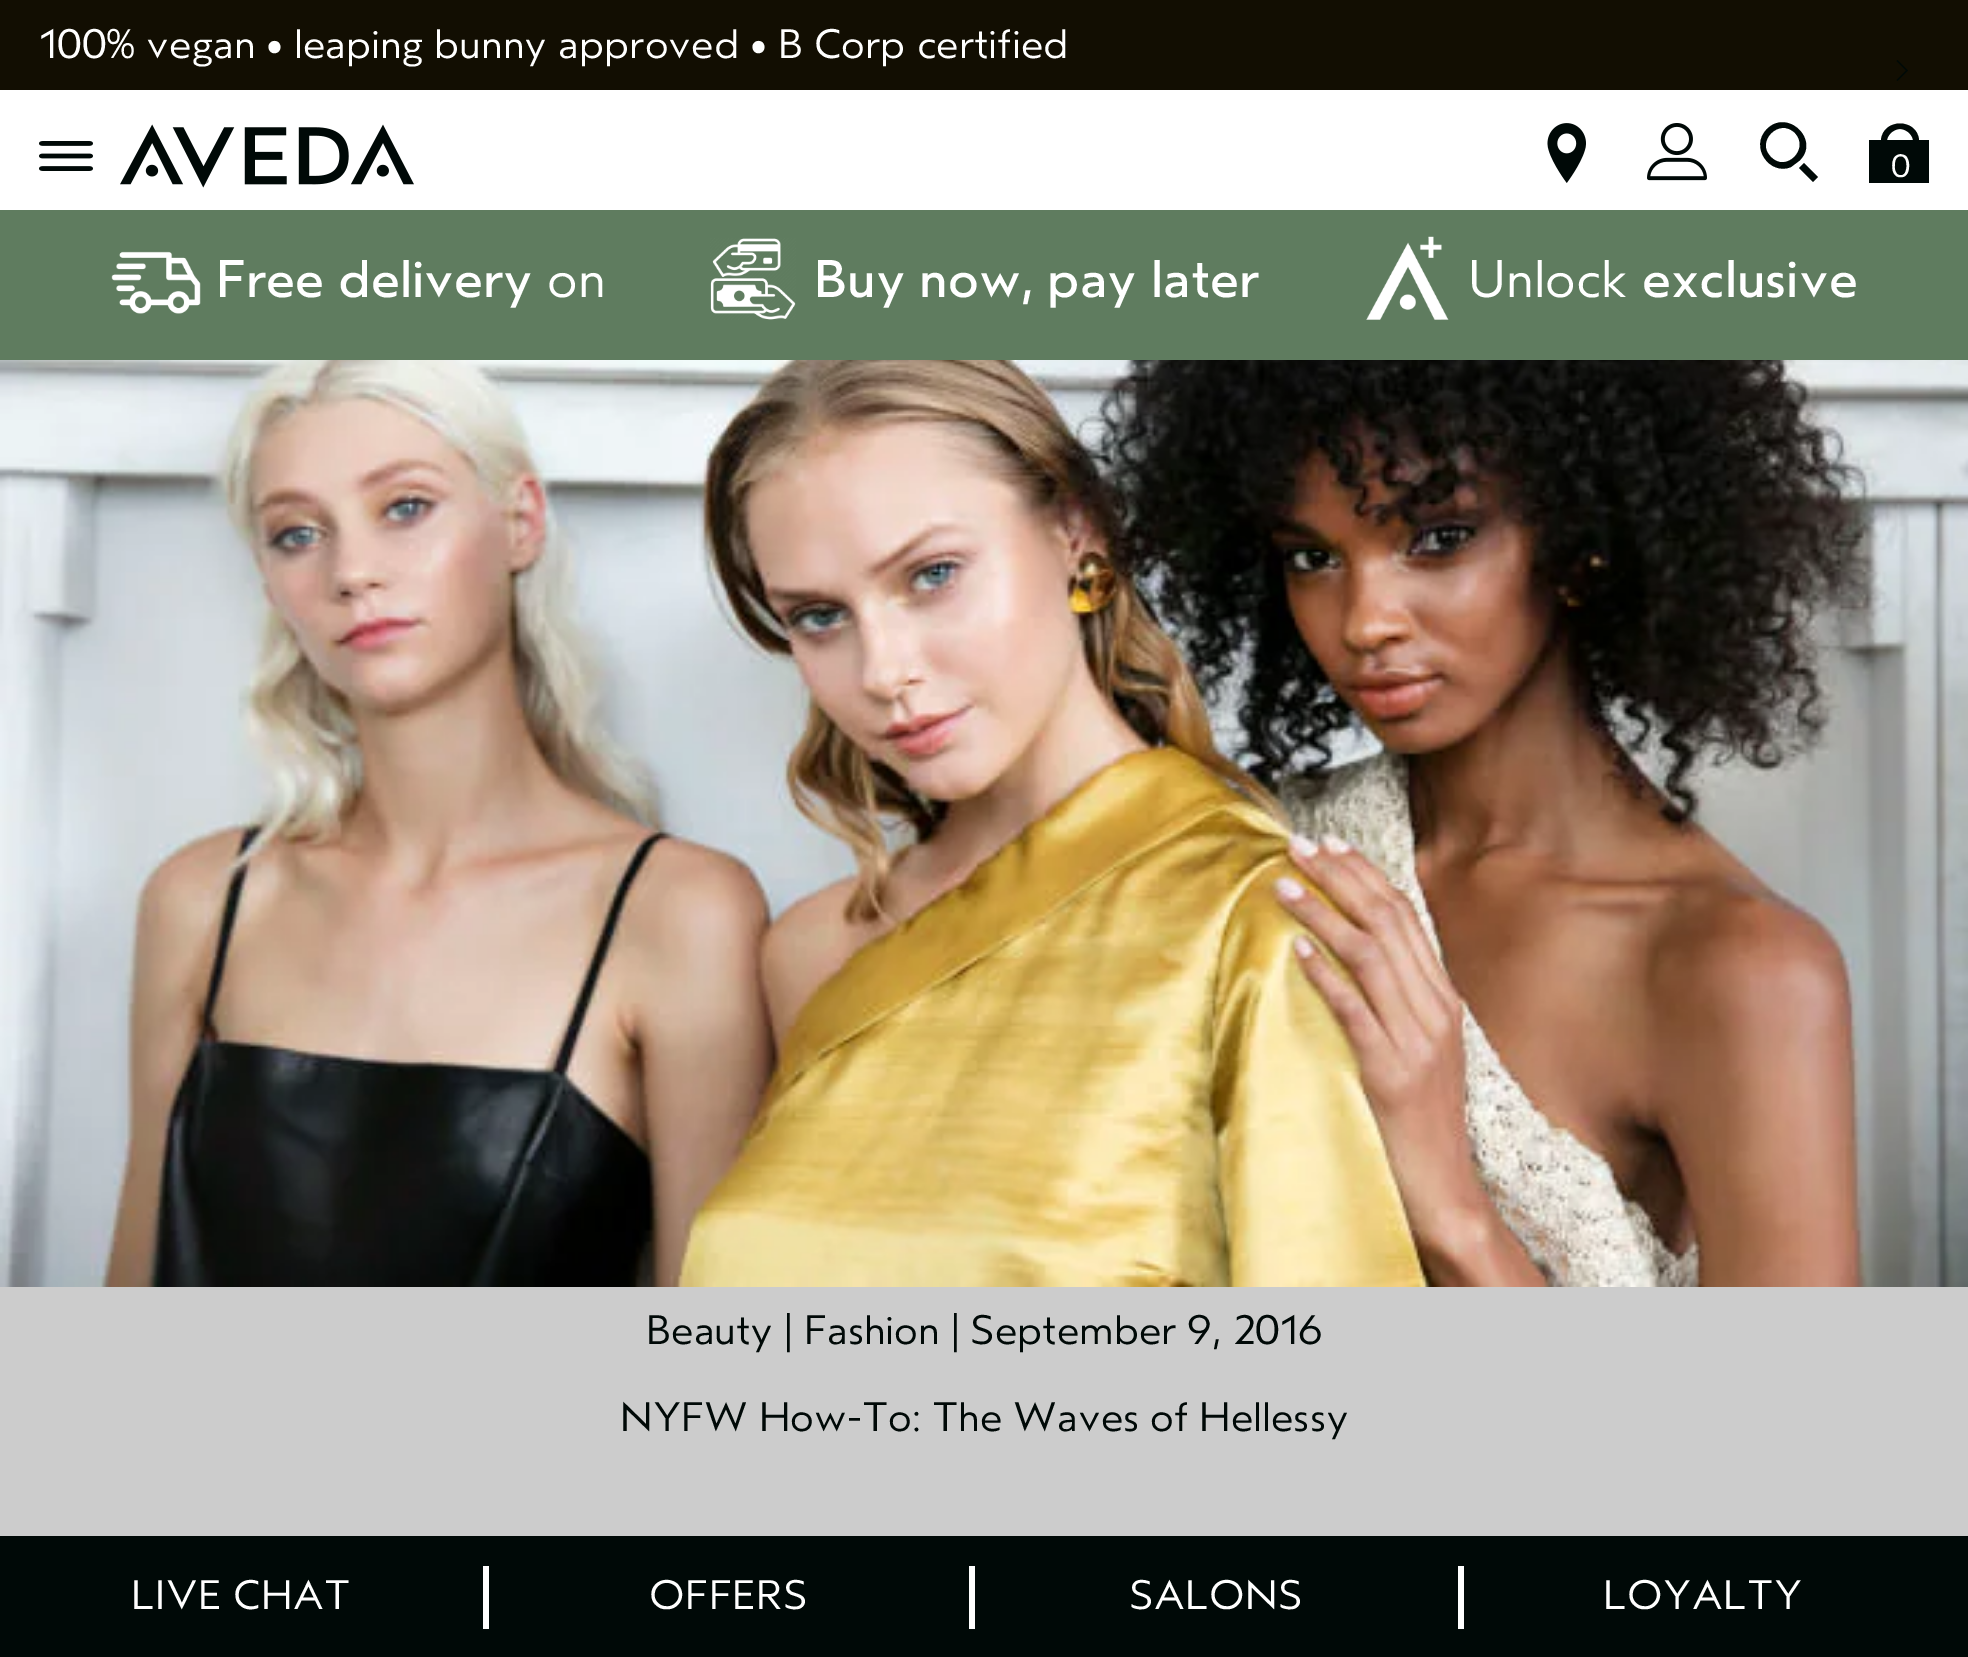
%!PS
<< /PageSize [1968 1657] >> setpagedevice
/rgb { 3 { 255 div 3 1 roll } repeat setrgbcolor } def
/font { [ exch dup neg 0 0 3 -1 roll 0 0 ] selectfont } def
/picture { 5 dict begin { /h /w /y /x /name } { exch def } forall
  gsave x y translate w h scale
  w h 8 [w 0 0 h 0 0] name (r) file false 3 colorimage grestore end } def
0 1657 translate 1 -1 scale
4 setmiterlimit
204 204 204 rgb
0 0 1968 1657 rectfill
255 255 255 rgb
0 90 1968 120 rectfill
18 14 2 rgb
0 0 1968 90 rectfill
(img/1.rgb) 39 141 54 30 picture
(img/2.rgb) 120 124 294 64 picture
(img/3.rgb) 1547 123 39 60 picture
(img/4.rgb) 1647 123 60 58 picture
0 9 7 rgb
1767 129 moveto 1749 147 1770 176 1791 167 curveto 1799 161 lineto 1821 141 1788 108 1767 129 curveto closepath 1795 133 moveto 1810 149 1786 173 1771 157 curveto 1755 142 1779 117 1795 133 curveto closepath 1818 177 moveto 1813 182 lineto 1799 168 lineto 1804 163 lineto closepath eofill
1919 140 moveto 1917 118 1883 118 1881 140 curveto 1869 140 lineto 1869 183 lineto 1929 183 lineto 1929 140 lineto closepath 1900 129 moveto 1906 129 1912 134 1913 140 curveto 1887 140 lineto 1888 134 1894 129 1900 129 curveto closepath fill
95 124 95 rgb
0 210 1968 150 rectfill
(img/5.rgb) 111 251 90 63 picture
(img/6.rgb) 710 238 86 82 picture
(img/7.rgb) 1366 236 83 84 picture
0 9 7 rgb
1897.5 60 moveto 1908 70.5 lineto 1897.5 81 lineto 1896.5 80 lineto 1906 70.5 lineto 1896.5 61 lineto closepath fill
(img/8.rgb) 0 360 1968 927 picture
[
  [0 1536 1968 121 0 9 7]
  [483 1566 6 63 255 255 255]
  [969 1566 6 63 255 255 255]
  [1458 1566 6 63 255 255 255]
] { aload pop rgb rectfill } forall
/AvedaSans-Regular 42 font
39 58 moveto (100% vegan • leaping bunny approved • B Corp certified) show
/AvedaSans-Regular 33 font
1891 177 moveto (0) show
/AvedaSans-Bold 54 font
216 297 moveto (Free delivery) show
/AvedaSans-Regular 54 font
547 297 moveto (on) show
/AvedaSans-Bold 54 font
814 297 moveto (Buy now, pay later) show
/AvedaSans-Regular 54 font
1468 297 moveto (Unlock) show
/AvedaSans-Bold 54 font
1642 297 moveto (exclusive) show
/AvedaSans-Regular 42 font
0 9 7 rgb
646 1344 moveto (Beauty | Fashion | September 9, 2016) show
620 1431 moveto (NYFW How-To: The Waves of Hellessy) show
255 255 255 rgb
131 1609 moveto 0.5 0 (LIVE CHAT) ashow
649 1609 moveto 0.5 0 (OFFERS) ashow
1129 1609 moveto 0.5 0 (SALONS) ashow
1603 1609 moveto 0.5 0 (LOYALTY) ashow
showpage
